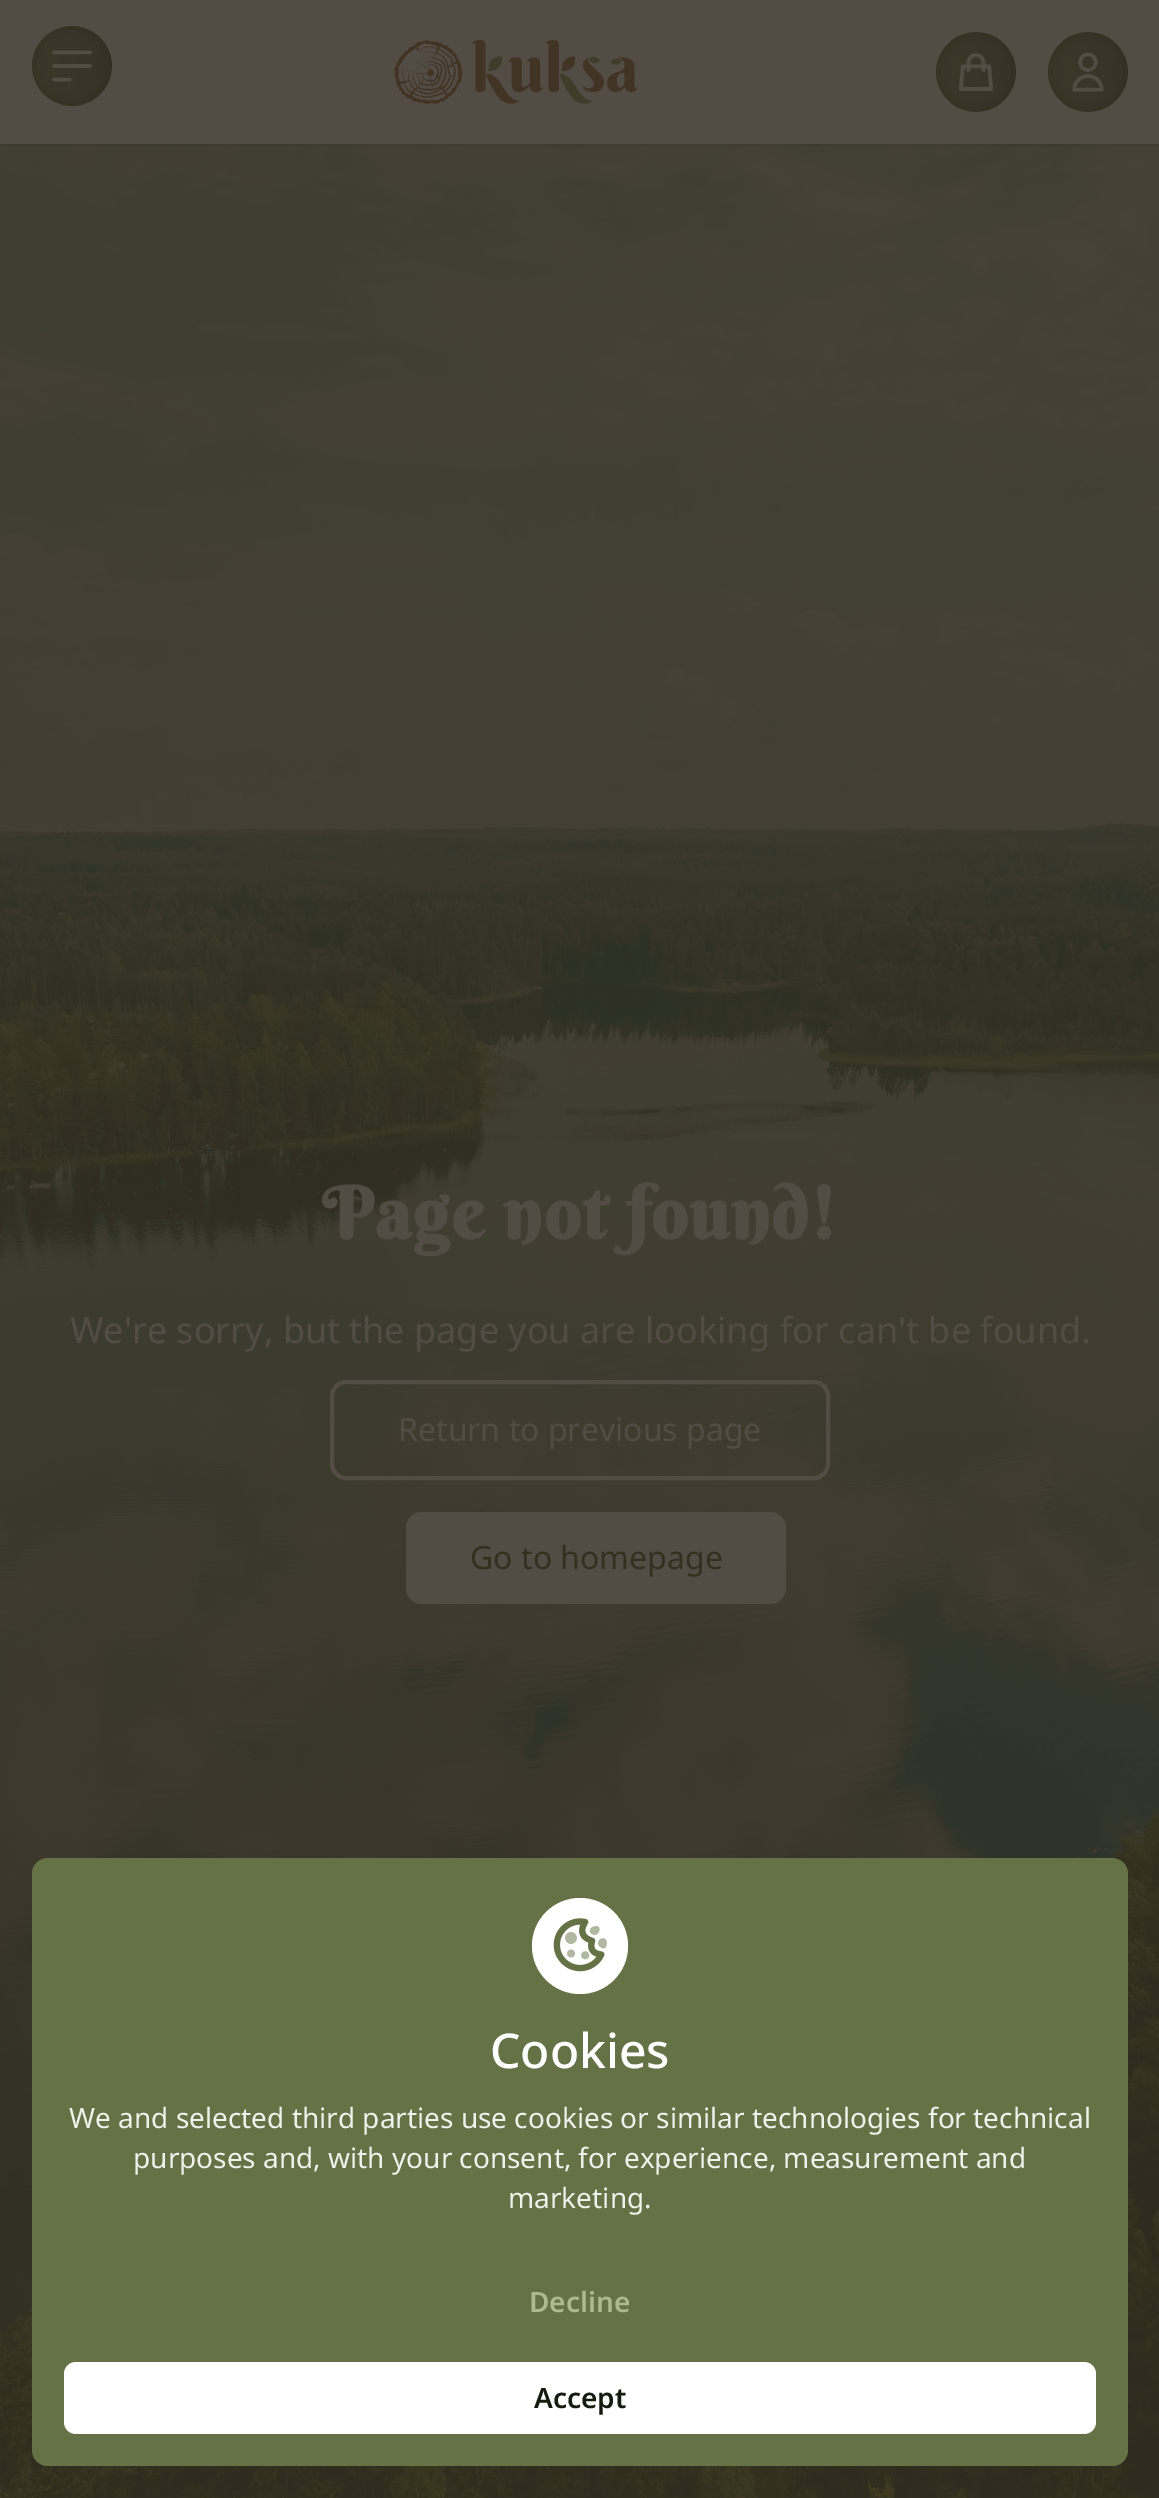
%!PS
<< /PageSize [1159 2498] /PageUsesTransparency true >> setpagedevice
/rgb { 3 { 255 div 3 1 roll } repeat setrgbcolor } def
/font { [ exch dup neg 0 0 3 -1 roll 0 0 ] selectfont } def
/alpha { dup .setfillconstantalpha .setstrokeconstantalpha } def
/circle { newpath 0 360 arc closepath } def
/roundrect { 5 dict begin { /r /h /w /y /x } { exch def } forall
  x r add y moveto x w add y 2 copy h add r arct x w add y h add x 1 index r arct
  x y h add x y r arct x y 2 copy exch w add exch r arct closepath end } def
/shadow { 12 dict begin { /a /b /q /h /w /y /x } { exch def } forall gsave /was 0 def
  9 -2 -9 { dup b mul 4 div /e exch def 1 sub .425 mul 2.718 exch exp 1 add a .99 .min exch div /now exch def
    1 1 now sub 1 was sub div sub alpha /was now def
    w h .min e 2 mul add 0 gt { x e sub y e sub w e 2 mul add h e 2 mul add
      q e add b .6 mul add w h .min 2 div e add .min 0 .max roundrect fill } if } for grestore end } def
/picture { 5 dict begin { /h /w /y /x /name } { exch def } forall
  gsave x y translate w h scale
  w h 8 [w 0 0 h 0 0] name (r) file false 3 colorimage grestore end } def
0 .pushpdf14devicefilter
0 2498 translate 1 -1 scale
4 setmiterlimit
255 255 255 rgb
0 0 1159 2498 rectfill
(img/5.rgb) 0 144 1159 2354 picture
31 25 18 rgb
2 4 1156 140 0 2 0.1 shadow
0 2 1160 144 0 3 0.1 shadow
82 76 69 rgb
0 0 1159 144 rectfill
gsave 72 66 40 circle clip newpath
<< /ShadingType 2 /ColorSpace /DeviceRGB /Coords [112 66 32 66] /Extend [true true] /Function << /FunctionType 2 /Domain [0 1] /C0 [0.184 0.169 0.11] /C1 [0.2 0.188 0.125] /N 1 >> >> shfill grestore
(img/1.rgb) 32 26 80 80 picture
(img/2.rgb) 394 40 244 64 picture
gsave 976 72 40 circle clip newpath
<< /ShadingType 2 /ColorSpace /DeviceRGB /Coords [1016 72 936 72] /Extend [true true] /Function << /FunctionType 2 /Domain [0 1] /C0 [0.184 0.169 0.11] /C1 [0.2 0.188 0.125] /N 1 >> >> shfill grestore
(img/3.rgb) 936 32 80 80 picture
gsave 1088 72 40 circle clip newpath
<< /ShadingType 2 /ColorSpace /DeviceRGB /Coords [1128 72 1048 72] /Extend [true true] /Function << /FunctionType 2 /Domain [0 1] /C0 [0.184 0.169 0.11] /C1 [0.2 0.188 0.125] /N 1 >> >> shfill grestore
(img/4.rgb) 1048 32 80 80 picture
4 setlinewidth
332 1382 496 96 14 roundrect stroke
406 1512 380 92 16 roundrect fill
100 114 70 rgb
32 1858 1096 608 16 roundrect fill
255 255 255 rgb
580 1946 48 circle fill
(img/6.rgb) 553 1918 54 54 picture
64 2362 1032 72 12 roundrect fill
/BerkshireSwash-Bold 72 font
82 76 69 rgb
322 1239 moveto 1.6 0 (Page not found!) ashow
/NotoSans-Regular 36 font
70 1343 moveto (We're sorry, but the page you are looking for can't be found.) show
/NotoSans-Regular 32 font
398 1441 moveto (Return to previous page) show
51 48 32 rgb
470 1569 moveto (Go to homepage) show
/NotoSans-Medium 48 font
255 255 255 rgb
490 2068 moveto (Cookies) show
/NotoSans-Regular 28 font
238 242 235 rgb
[
  [(We and selected third parties use cookies or similar technologies for technical) 69 2128]
  [(purposes and, with your consent, for experience, measurement and) 133 2168]
  [(marketing.) 508 2208]
] { aload pop moveto show } forall
/NotoSans-SemiBold 28 font
172 186 140 rgb
529 2312 moveto (Decline) show
22 26 15 rgb
534 2408 moveto (Accept) show
.poppdf14devicefilter showpage
